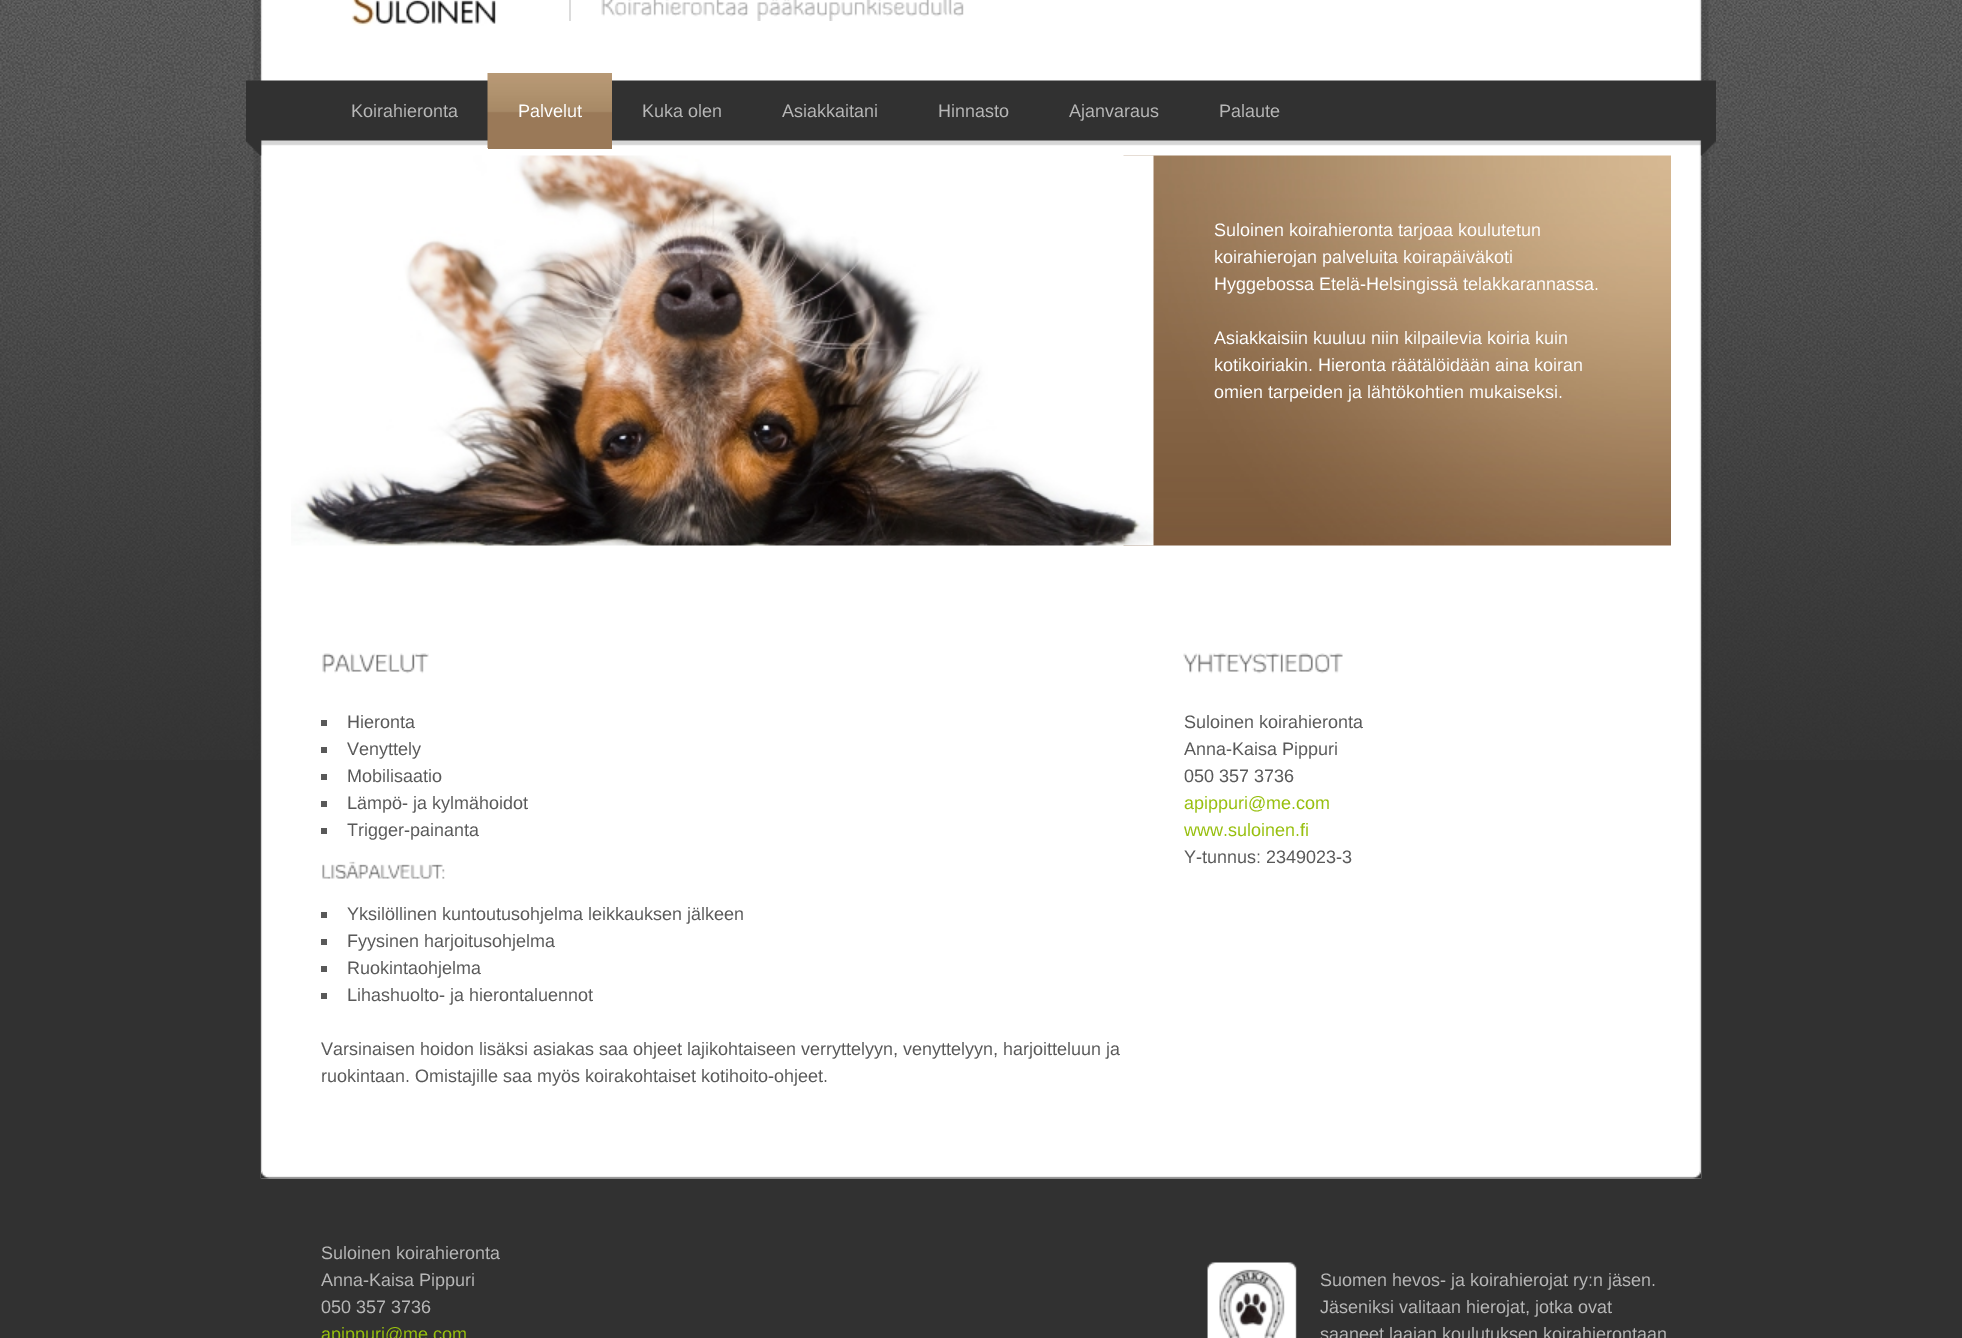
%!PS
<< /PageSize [1962 1338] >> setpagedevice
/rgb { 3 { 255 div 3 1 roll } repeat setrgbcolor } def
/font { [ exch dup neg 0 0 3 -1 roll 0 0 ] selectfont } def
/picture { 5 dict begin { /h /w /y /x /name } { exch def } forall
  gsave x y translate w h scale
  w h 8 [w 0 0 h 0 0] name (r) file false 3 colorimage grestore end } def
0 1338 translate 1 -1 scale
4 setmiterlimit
49 49 49 rgb
0 0 1962 1338 rectfill
(img/1.rgb) 0 0 1962 760 picture
(img/2.rgb) 253 0 1456 1179 picture
(img/3.rgb) 351 0 145 26 picture
220 220 220 rgb
569 0 2 21 rectfill
(img/4.rgb) 601 0 148 17 picture
(img/5.rgb) 757 0 207 21 picture
(img/6.rgb) 246 80 1470 76 picture
153 121 88 rgb
488 148 124 1 rectfill
(img/7.rgb) 487 73 125 75 picture
(img/8.rgb) 261 1171 1440 8 picture
(img/10.rgb) 1123 155 548 391 picture
(img/9.rgb) 291 155 863 391 picture
(img/11.rgb) 322 653 107 21 picture
[
  [321 720 6 6 89 89 89]
  [321 747 6 6 89 89 89]
  [321 774 6 6 89 89 89]
  [321 801 6 6 89 89 89]
  [321 828 6 6 89 89 89]
] { aload pop rgb rectfill } forall
(img/12.rgb) 322 861 123 18 picture
[
  [321 912 6 6 89 89 89]
  [321 939 6 6 89 89 89]
  [321 966 6 6 89 89 89]
  [321 993 6 6 89 89 89]
] { aload pop rgb rectfill } forall
(img/13.rgb) 1183 653 160 21 picture
(img/14.rgb) 1207 1262 90 76 picture
/LiberationSans-Regular 18 font
183 183 183 rgb
351 117 moveto (Koirahieronta) show
255 255 255 rgb
518 117 moveto (Palvelut) show
183 183 183 rgb
[
  [(Kuka olen) 642 117]
  [(Asiakkaitani) 782 117]
  [(Hinnasto) 938 117]
  [(Ajanvaraus) 1069 117]
  [(Palaute) 1219 117]
] { aload pop moveto show } forall
255 255 255 rgb
[
  [(Suloinen koirahieronta tarjoaa koulutetun) 1214 236]
  [(koirahierojan palveluita koirapäiväkoti) 1214 263]
  [(Hyggebossa Etelä-Helsingissä telakkarannassa.) 1214 290]
  [(Asiakkaisiin kuuluu niin kilpailevia koiria kuin) 1214 344]
  [(kotikoiriakin. Hieronta räätälöidään aina koiran) 1214 371]
  [(omien tarpeiden ja lähtökohtien mukaiseksi.) 1214 398]
] { aload pop moveto show } forall
89 89 89 rgb
[
  [(Hieronta) 347 728]
  [(Venyttely) 347 755]
  [(Mobilisaatio) 347 782]
  [(Lämpö- ja kylmähoidot) 347 809]
  [(Trigger-painanta) 347 836]
  [(Yksilöllinen kuntoutusohjelma leikkauksen jälkeen) 347 920]
  [(Fyysinen harjoitusohjelma) 347 947]
  [(Ruokintaohjelma) 347 974]
  [(Lihashuolto- ja hierontaluennot) 347 1001]
  [(Varsinaisen hoidon lisäksi asiakas saa ohjeet lajikohtaiseen verryttelyyn, venyttelyyn, harjoitteluun ja) 321 1055]
  [(ruokintaan. Omistajille saa myös koirakohtaiset kotihoito-ohjeet.) 321 1082]
  [(Suloinen koirahieronta) 1184 728]
  [(Anna-Kaisa Pippuri) 1184 755]
  [(050 357 3736) 1184 782]
] { aload pop moveto show } forall
151 191 13 rgb
1184 809 moveto (apippuri@me.com) show
1184 836 moveto (www.suloinen.fi) show
89 89 89 rgb
1184 863 moveto (Y-tunnus: 2349023-3) show
183 183 183 rgb
[
  [(Suloinen koirahieronta) 321 1259]
  [(Anna-Kaisa Pippuri) 321 1286]
  [(050 357 3736) 321 1313]
] { aload pop moveto show } forall
151 191 13 rgb
321 1340 moveto (apippuri@me.com) show
183 183 183 rgb
[
  [(Suomen hevos- ja koirahierojat ry:n jäsen.) 1320 1286]
  [(Jäseniksi valitaan hierojat, jotka ovat) 1320 1313]
  [(saaneet laajan koulutuksen koirahierontaan) 1320 1340]
] { aload pop moveto show } forall
showpage
